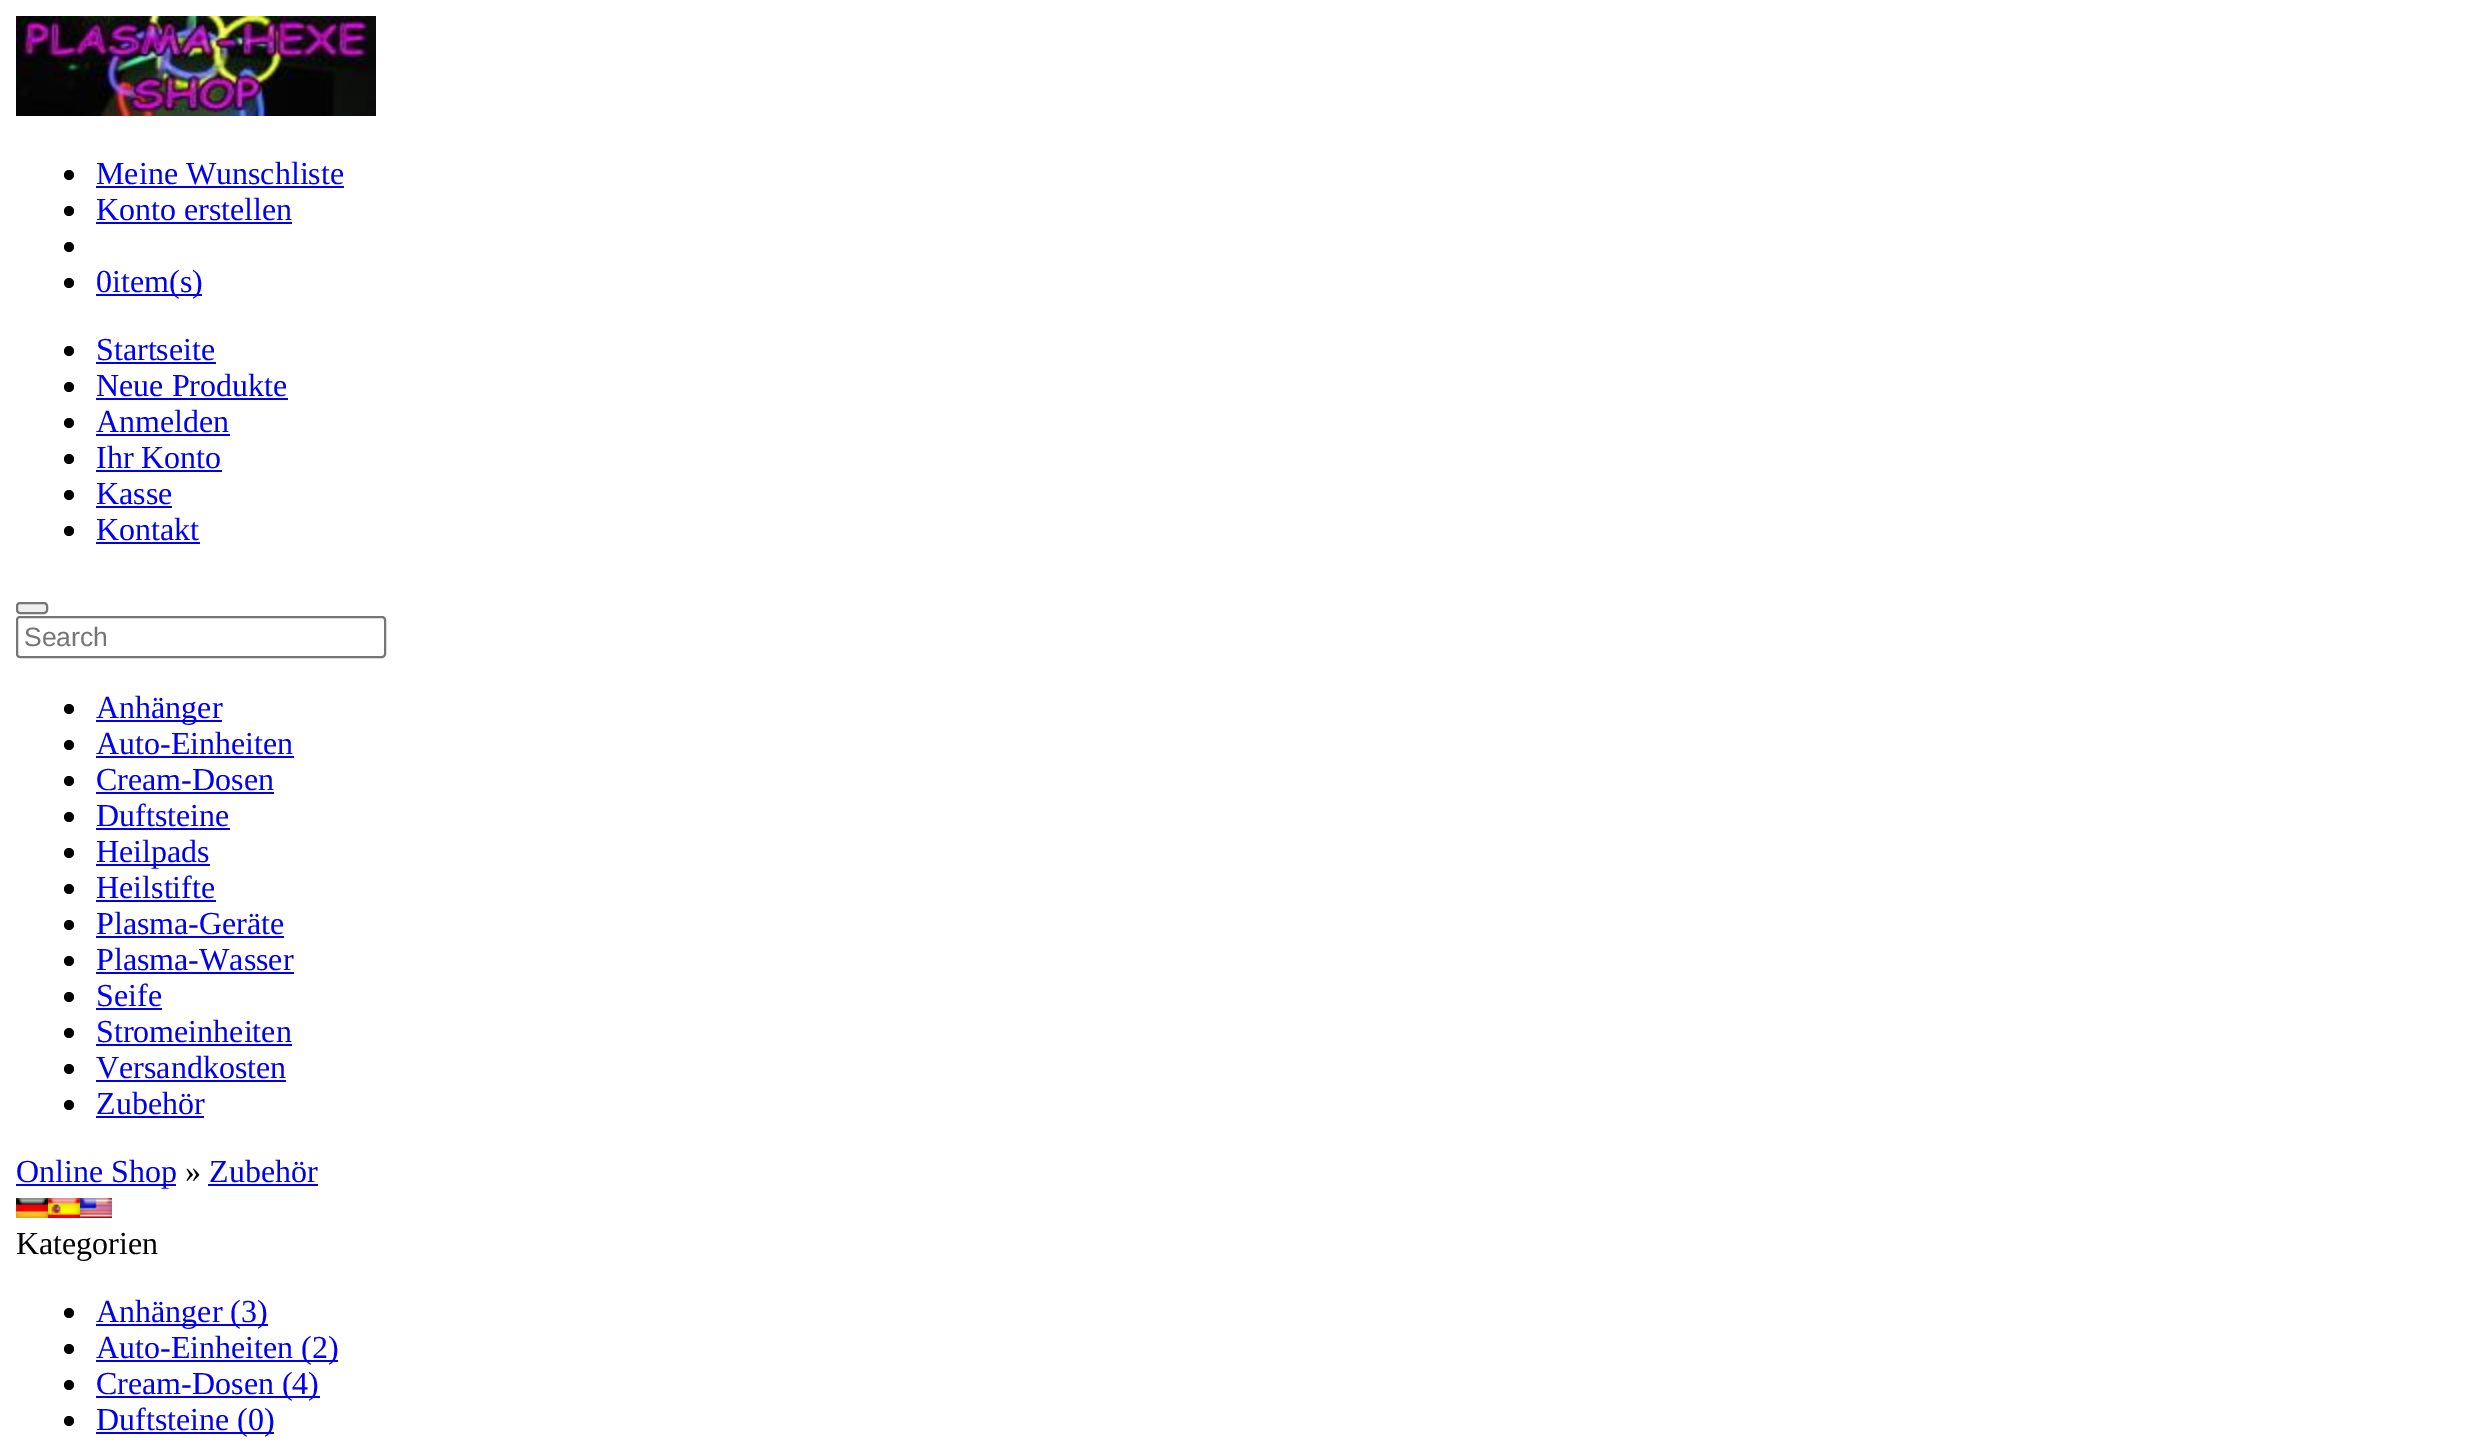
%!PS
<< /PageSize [2490 1444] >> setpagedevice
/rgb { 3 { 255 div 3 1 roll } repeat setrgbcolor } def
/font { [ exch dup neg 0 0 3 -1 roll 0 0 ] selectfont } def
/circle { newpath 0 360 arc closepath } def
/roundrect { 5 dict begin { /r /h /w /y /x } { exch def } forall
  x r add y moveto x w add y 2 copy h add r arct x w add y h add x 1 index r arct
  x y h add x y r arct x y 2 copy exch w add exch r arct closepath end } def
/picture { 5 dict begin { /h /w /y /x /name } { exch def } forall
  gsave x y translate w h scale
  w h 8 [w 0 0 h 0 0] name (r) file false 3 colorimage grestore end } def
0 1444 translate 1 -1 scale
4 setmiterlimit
255 255 255 rgb
0 0 2490 1444 rectfill
(img/1.rgb) 16 16 360 100 picture
0 0 0 rgb
69 175 5 circle fill
0 0 238 rgb
96 186 248 2 rectfill
0 0 0 rgb
69 211 5 circle fill
0 0 238 rgb
96 222 196 2 rectfill
0 0 0 rgb
69 247 5 circle fill
69 283 5 circle fill
0 0 238 rgb
96 294 106 2 rectfill
0 0 0 rgb
69 351 5 circle fill
0 0 238 rgb
96 362 120 2 rectfill
0 0 0 rgb
69 387 5 circle fill
0 0 238 rgb
96 398 192 2 rectfill
0 0 0 rgb
69 423 5 circle fill
0 0 238 rgb
96 434 134 2 rectfill
0 0 0 rgb
69 459 5 circle fill
0 0 238 rgb
96 470 126 2 rectfill
0 0 0 rgb
69 495 5 circle fill
0 0 238 rgb
96 506 76 2 rectfill
0 0 0 rgb
69 531 5 circle fill
0 0 238 rgb
96 542 104 2 rectfill
239 239 239 rgb
17 603 30 10 3 roundrect gsave fill grestore
118 118 118 rgb
2 setlinewidth
stroke
17 617 368 40 3 roundrect stroke
0 0 0 rgb
69 709 5 circle fill
0 0 238 rgb
96 720 126 2 rectfill
0 0 0 rgb
69 745 5 circle fill
0 0 238 rgb
96 756 198 2 rectfill
0 0 0 rgb
69 781 5 circle fill
0 0 238 rgb
96 792 178 2 rectfill
0 0 0 rgb
69 817 5 circle fill
0 0 238 rgb
96 828 134 2 rectfill
0 0 0 rgb
69 853 5 circle fill
0 0 238 rgb
96 864 114 2 rectfill
0 0 0 rgb
69 889 5 circle fill
0 0 238 rgb
96 900 120 2 rectfill
0 0 0 rgb
69 925 5 circle fill
0 0 238 rgb
96 936 188 2 rectfill
0 0 0 rgb
69 961 5 circle fill
0 0 238 rgb
96 972 198 2 rectfill
0 0 0 rgb
69 997 5 circle fill
0 0 238 rgb
96 1008 66 2 rectfill
0 0 0 rgb
69 1033 5 circle fill
0 0 238 rgb
96 1044 196 2 rectfill
0 0 0 rgb
69 1069 5 circle fill
0 0 238 rgb
96 1080 190 2 rectfill
0 0 0 rgb
69 1105 5 circle fill
[
  [96 1116 108 2 0 0 238]
  [16 1184 160 2 0 0 238]
  [208 1184 110 2 0 0 238]
] { aload pop rgb rectfill } forall
(img/2.rgb) 16 1198 32 20 picture
(img/3.rgb) 48 1198 32 20 picture
(img/4.rgb) 80 1198 32 20 picture
0 0 0 rgb
69 1313 5 circle fill
0 0 238 rgb
96 1324 172 2 rectfill
0 0 0 rgb
69 1349 5 circle fill
0 0 238 rgb
96 1360 242 2 rectfill
0 0 0 rgb
69 1385 5 circle fill
0 0 238 rgb
96 1396 224 2 rectfill
0 0 0 rgb
69 1421 5 circle fill
0 0 238 rgb
96 1432 178 2 rectfill
/LiberationSerif-Regular 32 font
[
  [(Meine Wunschliste) 96 184]
  [(Konto erstellen) 96 220]
  [(0item\(s\)) 96 292]
  [(Startseite) 96 360]
  [(Neue Produkte) 96 396]
  [(Anmelden) 96 432]
  [(Ihr Konto) 96 468]
  [(Kasse) 96 504]
  [(Kontakt) 96 540]
] { aload pop moveto show } forall
/LiberationSans-Regular 26.5 font
117 117 117 rgb
24 646 moveto (Search) show
/LiberationSerif-Regular 32 font
0 0 238 rgb
[
  [(Anhänger) 96 718]
  [(Auto-Einheiten) 96 754]
  [(Cream-Dosen) 96 790]
  [(Duftsteine) 96 826]
  [(Heilpads) 96 862]
  [(Heilstifte) 96 898]
  [(Plasma-Geräte) 96 934]
  [(Plasma-Wasser) 96 970]
  [(Seife) 96 1006]
  [(Stromeinheiten) 96 1042]
  [(Versandkosten) 96 1078]
  [(Zubehör) 96 1114]
  [(Online Shop) 16 1182]
] { aload pop moveto show } forall
0 0 0 rgb
185 1182 moveto (») show
0 0 238 rgb
209 1182 moveto (Zubehör) show
0 0 0 rgb
16 1254 moveto (Kategorien) show
0 0 238 rgb
[
  [(Anhänger \(3\)) 96 1322]
  [(Auto-Einheiten \(2\)) 96 1358]
  [(Cream-Dosen \(4\)) 96 1394]
  [(Duftsteine \(0\)) 96 1430]
] { aload pop moveto show } forall
showpage
